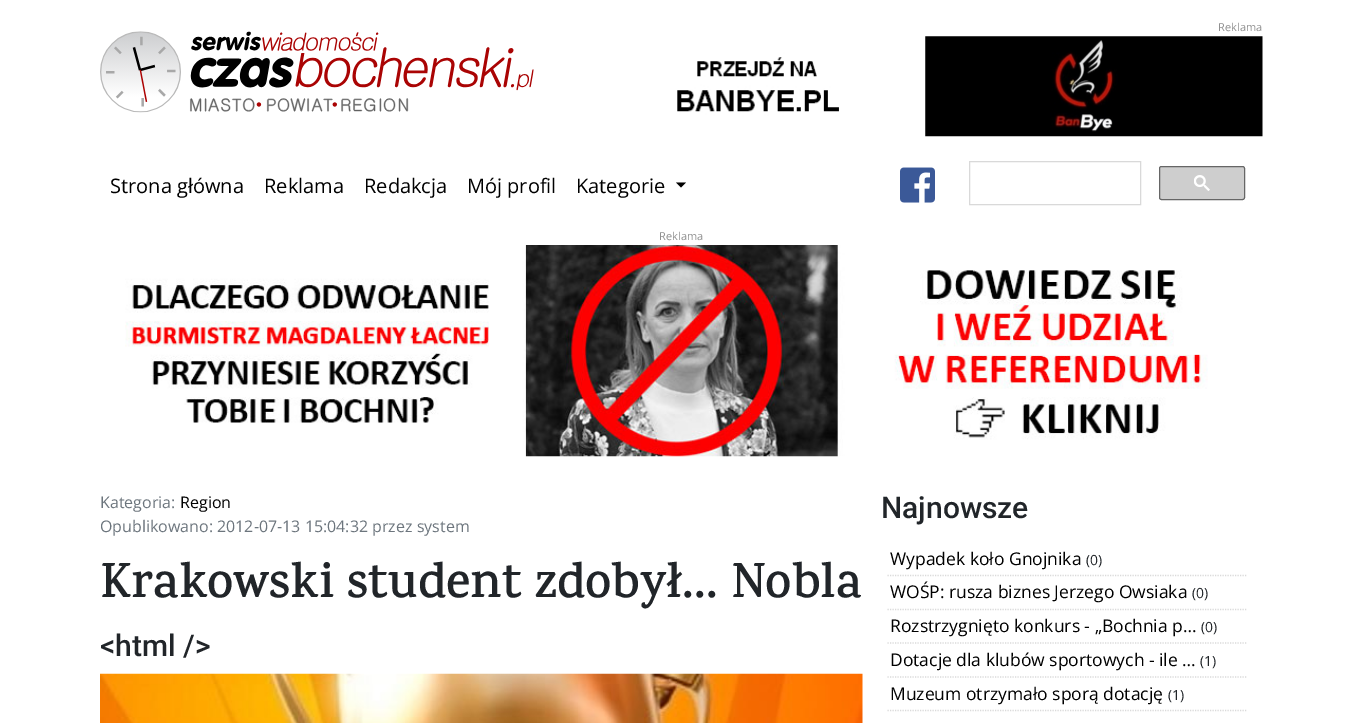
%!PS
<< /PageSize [1362 723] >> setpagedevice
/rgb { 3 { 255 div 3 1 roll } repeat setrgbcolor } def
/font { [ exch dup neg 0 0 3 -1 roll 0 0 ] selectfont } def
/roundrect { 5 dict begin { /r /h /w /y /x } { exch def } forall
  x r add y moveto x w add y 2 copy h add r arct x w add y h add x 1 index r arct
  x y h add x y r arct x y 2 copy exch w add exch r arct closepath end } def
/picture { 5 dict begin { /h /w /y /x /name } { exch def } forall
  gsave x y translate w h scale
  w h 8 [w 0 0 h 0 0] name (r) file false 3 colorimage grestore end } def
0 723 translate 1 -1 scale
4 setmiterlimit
255 255 255 rgb
0 0 1362 723 rectfill
(img/1.rgb) 677 36 586 101 picture
(img/2.rgb) 100 31 434 82 picture
0 0 0 rgb
676 182.5 moveto 686 182.5 lineto 681 187.5 lineto closepath fill
(img/3.rgb) 900 167 35 36 picture
217 217 217 rgb
969.5 161.5 171 43 rectstroke
206 206 206 rgb
1159.5 166.5 85 33 2 roundrect gsave fill grestore
102 102 102 rgb
stroke
(img/4.rgb) 1194 175 16 16 picture
(img/5.rgb) 125 245 1083 212 picture
(img/6.rgb) 100 673 763 50 picture
218 218 218 rgb
1.2 setlinewidth
[1.25 1.25] 0 setdash
887.5 575.5 moveto 1247.5 575.5 lineto stroke
887.5 609.5 moveto 1247.5 609.5 lineto stroke
887.5 643 moveto 1247.5 643 lineto stroke
887.5 677 moveto 1247.5 677 lineto stroke
887.5 710.5 moveto 1247.5 710.5 lineto stroke
/OpenSans-Regular 11 font
144 144 144 rgb
1218 31 moveto (Reklama) show
/OpenSans-Regular 20 font
0 0 0 rgb
[
  [(Strona główna) 110 193]
  [(Reklama) 264 193]
  [(Redakcja) 364 193]
  [(Mój profil) 467 193]
  [(Kategorie) 576 193]
] { aload pop moveto show } forall
/OpenSans-Regular 11 font
144 144 144 rgb
659 240 moveto (Reklama) show
/OpenSans-Regular 16 font
108 117 125 rgb
100 508 moveto (Kategoria:) show
0 0 0 rgb
180 508 moveto (Region) show
108 117 125 rgb
100 532 moveto (Opublikowano: 2012-07-13 15:04:32 przez system) show
/Karma-SemiBold 50 font
33 37 41 rgb
100 597 moveto (Krakowski student zdobył... Nobla) show
/Roboto-Medium 30 font
100 656 moveto (<html />) show
881 518 moveto (Najnowsze) show
/OpenSans-Regular 17.5 font
0 0 0 rgb
890 565 moveto (Wypadek koło Gnojnika) show
/OpenSans-Regular 14 font
33 37 41 rgb
1086 565 moveto (\(0\)) show
/OpenSans-Regular 17.5 font
0 0 0 rgb
890 598 moveto (WOŚP: rusza biznes Jerzego Owsiaka) show
/OpenSans-Regular 14 font
33 37 41 rgb
1192 598 moveto (\(0\)) show
/OpenSans-Regular 17.5 font
0 0 0 rgb
890 632 moveto (Rozstrzygnięto konkurs - „Bochnia p…) show
/OpenSans-Regular 14 font
33 37 41 rgb
1201 632 moveto (\(0\)) show
/OpenSans-Regular 17.5 font
0 0 0 rgb
890 666 moveto (Dotacje dla klubów sportowych - ile …) show
/OpenSans-Regular 14 font
33 37 41 rgb
1200 666 moveto (\(1\)) show
/OpenSans-Regular 17.5 font
0 0 0 rgb
890 700 moveto (Muzeum otrzymało sporą dotację) show
/OpenSans-Regular 14 font
33 37 41 rgb
1168 700 moveto (\(1\)) show
showpage
